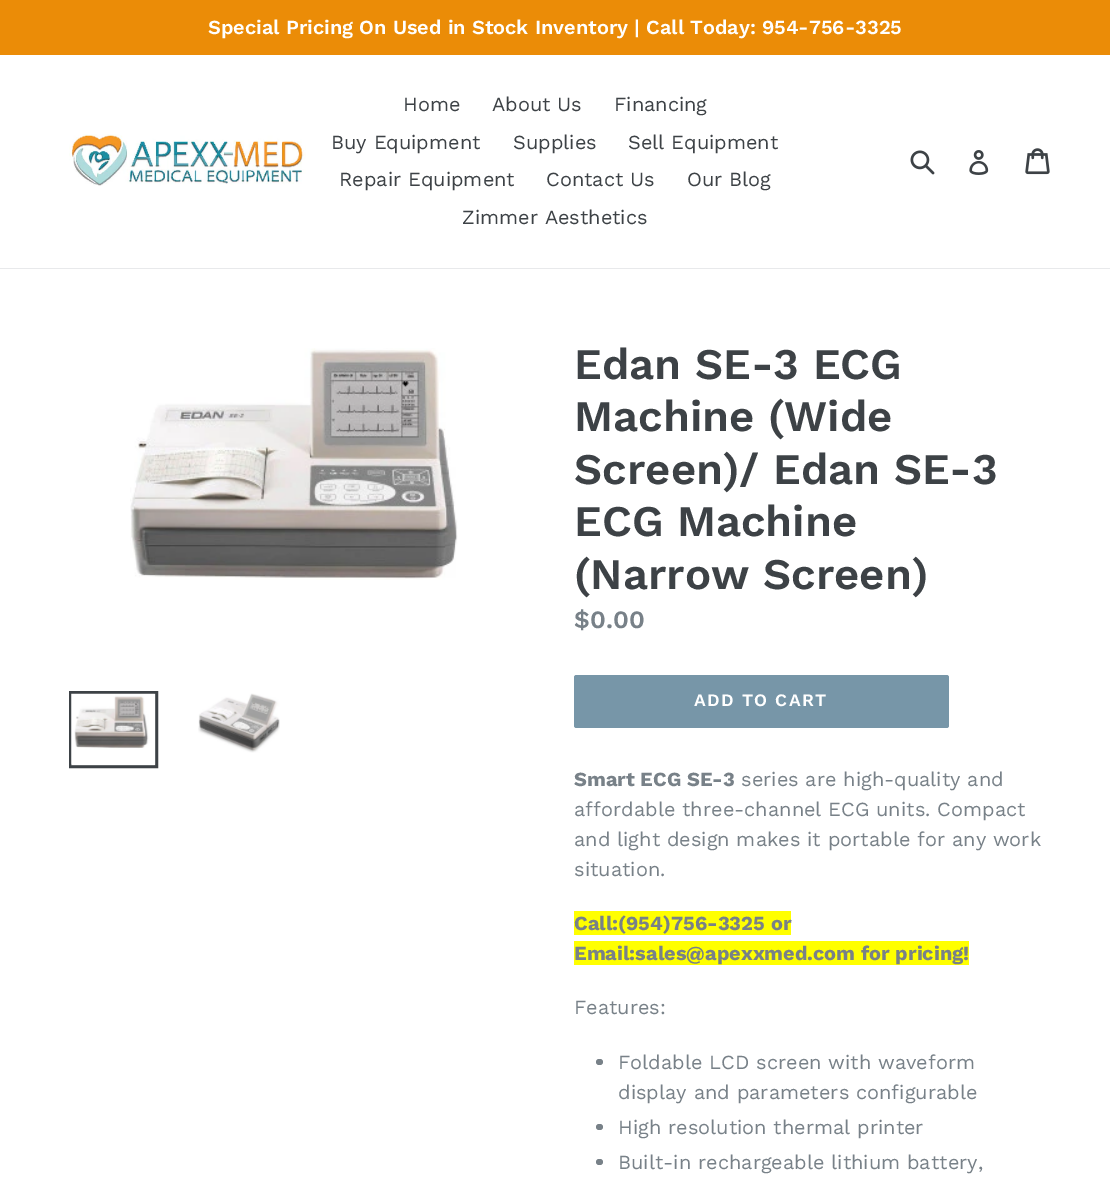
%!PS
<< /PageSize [1110 1195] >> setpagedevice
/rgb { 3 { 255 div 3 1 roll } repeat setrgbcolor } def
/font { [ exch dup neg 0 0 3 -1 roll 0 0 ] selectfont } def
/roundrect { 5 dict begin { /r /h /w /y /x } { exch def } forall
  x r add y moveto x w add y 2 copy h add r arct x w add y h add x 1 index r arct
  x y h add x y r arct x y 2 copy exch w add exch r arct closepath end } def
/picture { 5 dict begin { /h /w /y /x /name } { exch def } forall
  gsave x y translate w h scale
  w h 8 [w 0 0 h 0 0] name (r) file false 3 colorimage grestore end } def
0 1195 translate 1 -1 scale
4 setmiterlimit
255 255 255 rgb
0 0 1110 1195 rectfill
235 140 7 rgb
0 0 1110 55 rectfill
232 233 235 rgb
0 268 1110 1 rectfill
(img/1.rgb) 69 134 237 52 picture
(img/2.rgb) 910 150 25 25 picture
(img/3.rgb) 969 150 20 25 picture
(img/4.rgb) 1025 148 25 27 picture
(img/5.rgb) 130 348 328 232 picture
61 66 70 rgb
3 setlinewidth
70.5 692.5 86 74 rectstroke
(img/6.rgb) 71 693 85 73 picture
(img/7.rgb) 198 693 82 60 picture
119 150 168 rgb
574 675 375 53 2.5 roundrect fill
255 255 0 rgb
574 911 217 24 rectfill
574 941 395 24 rectfill
120 129 136 rgb
596 1059 7 6 3 roundrect fill
596 1124 7 6 3 roundrect fill
596 1159 7 6 3 roundrect fill
/WorkSans-SemiBold 20 font
255 255 255 rgb
208 34 moveto (Special Pricing On Used in Stock Inventory | Call Today: 954-756-3325) show
/WorkSans-Regular 20 font
61 66 70 rgb
[
  [(Home) 403 111]
  [(About Us) 492 111]
  [(Financing) 614 111]
  [(Buy Equipment) 331 149]
  [(Supplies) 513 149]
  [(Sell Equipment) 628 149]
  [(Repair Equipment) 339 186]
  [(Contact Us) 546 186]
  [(Our Blog) 687 186]
  [(Zimmer Aesthetics) 462 224]
] { aload pop moveto show } forall
/WorkSans-SemiBold 43.75 font
[
  [(Edan SE-3 ECG) 574 379]
  [(Machine \(Wide) 574 431]
  [(Screen\)/ Edan SE-3) 574 484]
  [(ECG Machine) 574 536]
  [(\(Narrow Screen\)) 574 589]
] { aload pop moveto show } forall
/WorkSans-SemiBold 25 font
120 129 136 rgb
574 628 moveto ($0.00) show
/WorkSans-SemiBold 17.5 font
255 255 255 rgb
694 706 moveto 1.4 0 (ADD TO CART) ashow
/WorkSans-Bold 20 font
120 129 136 rgb
574 786 moveto (Smart ECG SE-3) show
/WorkSans-Regular 20 font
[
  [(series are high-quality and) 741 786]
  [(affordable three-channel ECG units. Compact) 574 816]
  [(and light design makes it portable for any work) 574 846]
  [(situation.) 574 876]
] { aload pop moveto show } forall
/WorkSans-Bold 20 font
574 930 moveto (Call:\(954\)756-3325 or) show
574 960 moveto (Email:sales@apexxmed.com for pricing!) show
/WorkSans-Regular 20 font
[
  [(Features:) 574 1014]
  [(Foldable LCD screen with waveform) 618 1069]
  [(display and parameters configurable) 618 1099]
  [(High resolution thermal printer) 618 1134]
  [(Built-in rechargeable lithium battery,) 618 1169]
] { aload pop moveto show } forall
showpage
